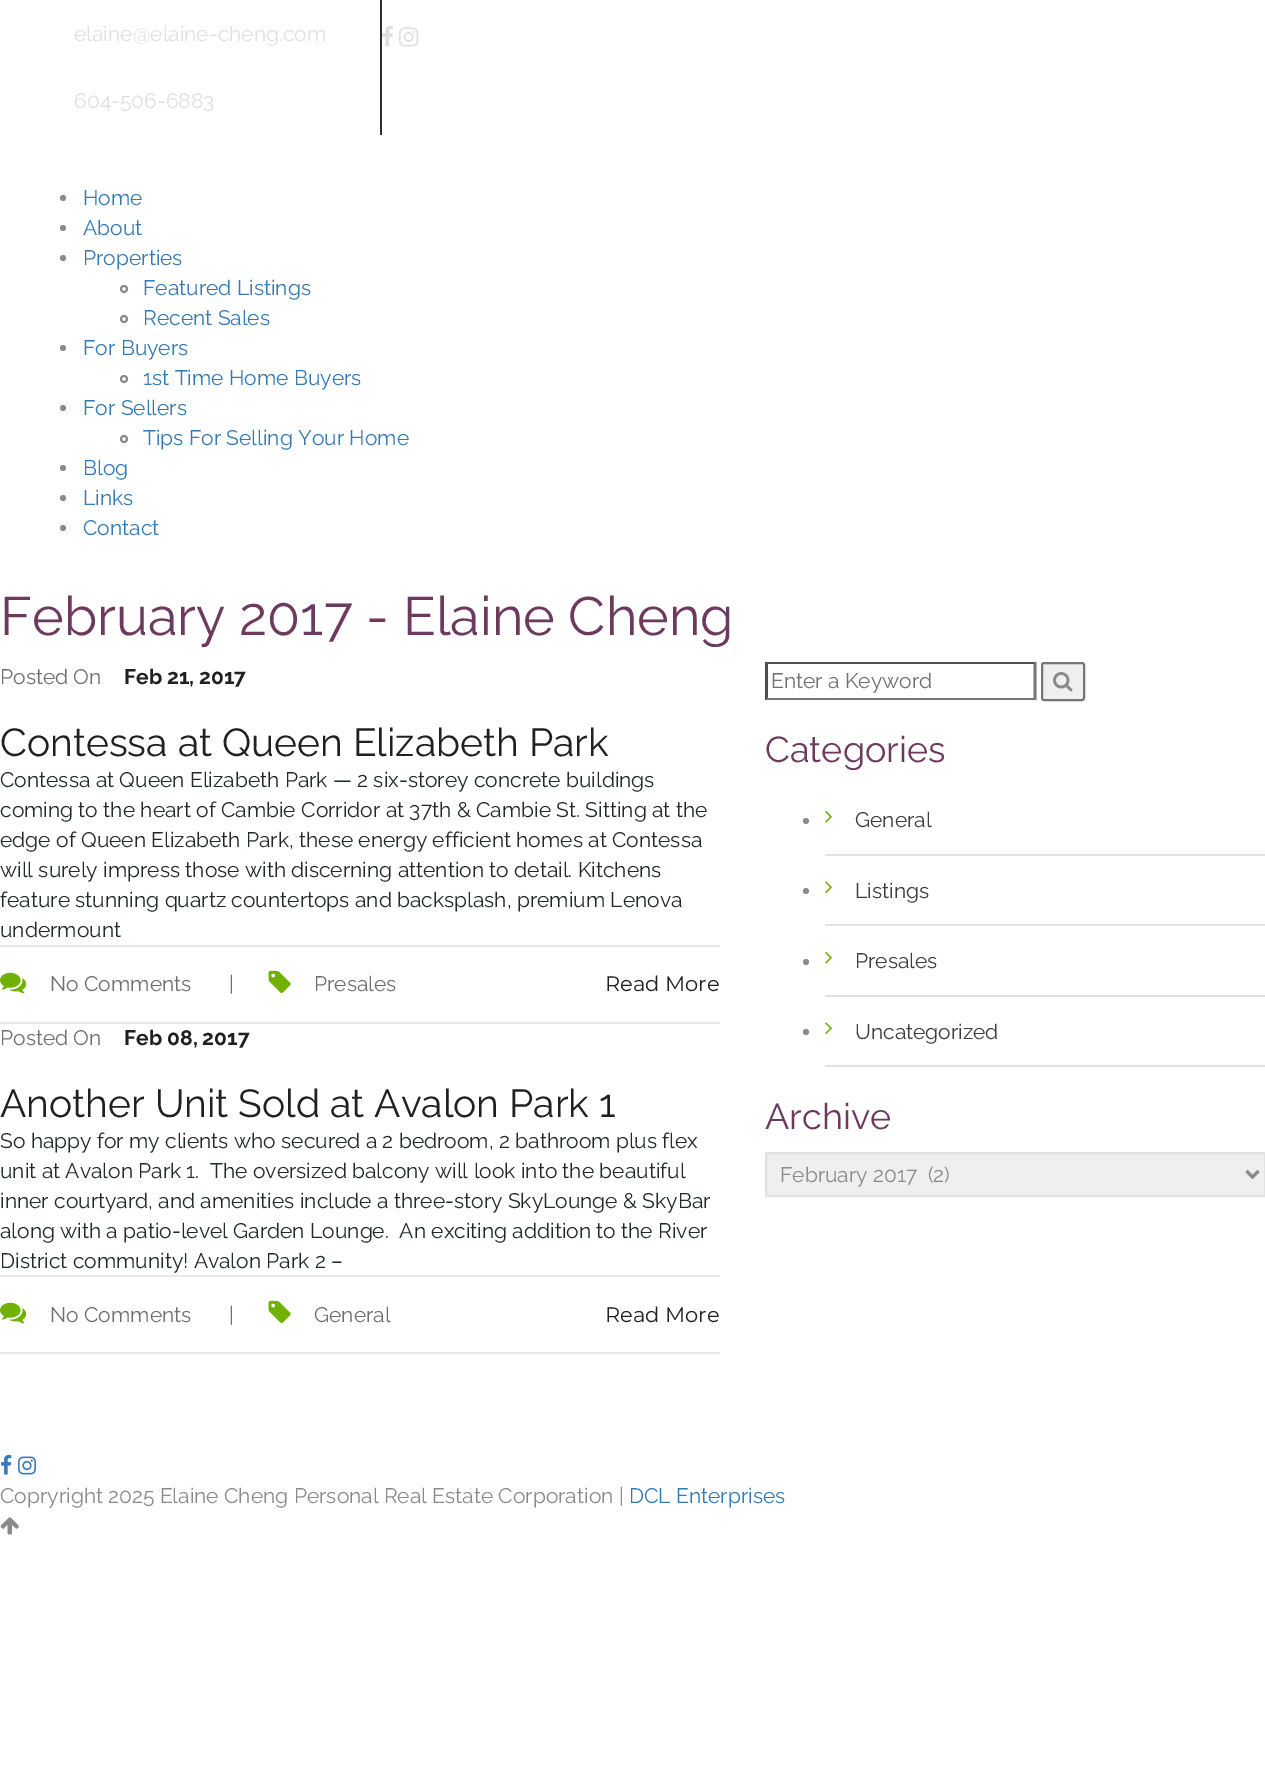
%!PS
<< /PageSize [1265 1783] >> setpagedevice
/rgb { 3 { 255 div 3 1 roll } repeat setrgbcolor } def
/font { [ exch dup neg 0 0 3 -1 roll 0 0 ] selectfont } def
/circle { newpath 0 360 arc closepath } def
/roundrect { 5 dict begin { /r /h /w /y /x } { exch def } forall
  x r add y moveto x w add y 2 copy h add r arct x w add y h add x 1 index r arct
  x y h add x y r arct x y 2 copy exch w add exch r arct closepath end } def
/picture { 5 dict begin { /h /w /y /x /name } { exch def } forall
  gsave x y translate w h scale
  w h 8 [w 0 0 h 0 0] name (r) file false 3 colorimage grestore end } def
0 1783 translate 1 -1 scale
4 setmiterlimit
255 255 255 rgb
0 0 1265 1783 rectfill
43 48 52 rgb
380 0 2 135 rectfill
(img/1.rgb) 382 25 11 22 picture
(img/2.rgb) 399 27 20 20 picture
138 138 140 rgb
63 198 3 circle fill
63 228 3 circle fill
63 258 3 circle fill
2 setlinewidth
124 289 3 circle stroke
124 319 3 circle stroke
63 348 3 circle fill
124 379 3 circle stroke
63 408 3 circle fill
124 439 3 circle stroke
63 468 3 circle fill
63 498 3 circle fill
63 528 3 circle fill
233 233 233 rgb
0 945 720 2 rectfill
0 1022 720 2 rectfill
(img/3.rgb) 0 972 27 22 picture
(img/4.rgb) 268 970 23 24 picture
0 1275 720 2 rectfill
0 1352 720 2 rectfill
(img/3.rgb) 0 1302 27 22 picture
(img/4.rgb) 268 1300 23 24 picture
79 79 79 rgb
765 662 moveto 1036 662 lineto 1034 664 lineto 768 664 lineto closepath fill
118 118 118 rgb
1036.5 661.5 moveto 1036.5 700.5 lineto 1033.5 697.5 lineto 1033.5 664.5 lineto closepath fill
1036 700 moveto 765 700 lineto 768 698 lineto 1034 698 lineto closepath fill
79 79 79 rgb
765 700.5 moveto 765 661.5 lineto 768 664.5 lineto 768 697.5 lineto closepath fill
239 239 239 rgb
1042 663 42 37 2 roundrect gsave fill grestore
118 118 118 rgb
stroke
(img/5.rgb) 1053 672 20 20 picture
225 225 225 rgb
825 854 440 2 rectfill
138 138 140 rgb
806 821 3 circle fill
(img/6.rgb) 825 811 7 12 picture
225 225 225 rgb
825 924 440 2 rectfill
138 138 140 rgb
806 891 3 circle fill
(img/7.rgb) 825 881 7 12 picture
225 225 225 rgb
825 995 440 2 rectfill
138 138 140 rgb
806 962 3 circle fill
(img/6.rgb) 825 952 7 12 picture
225 225 225 rgb
825 1065 440 2 rectfill
138 138 140 rgb
806 1032 3 circle fill
(img/7.rgb) 825 1022 7 12 picture
239 239 239 rgb
766 1153 moveto 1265 1153 lineto 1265 1196 lineto 766 1196 lineto closepath gsave fill grestore
225 225 225 rgb
stroke
138 138 140 rgb
3 setlinewidth
1246.5 1171 moveto 1252.5 1177 lineto 1258.5 1171 lineto stroke
(img/8.rgb) 1 1455 11 20 picture
(img/9.rgb) 18 1456 18 19 picture
(img/10.rgb) 0 1517 19 18 picture
/Raleway-Regular 21 font
224 224 224 rgb
74 41 moveto (elaine@elaine-cheng.com) show
74 108 moveto (604-506-6883) show
51 122 183 rgb
[
  [(Home) 83 205]
  [(About) 83 235]
  [(Properties) 83 265]
  [(Featured Listings) 143 295]
  [(Recent Sales) 143 325]
  [(For Buyers) 83 355]
  [(1st Time Home Buyers) 143 385]
  [(For Sellers) 83 415]
  [(Tips For Selling Your Home) 143 445]
  [(Blog) 83 475]
  [(Links) 83 505]
  [(Contact) 83 535]
] { aload pop moveto show } forall
/Raleway-Regular 54 font
109 58 93 rgb
0 635 moveto (February 2017 - Elaine Cheng) show
/Raleway-Regular 21 font
112 112 112 rgb
0 684 moveto (Posted On) show
/Raleway-Bold 21 font
32 32 32 rgb
124 684 moveto (Feb 21, 2017) show
/Raleway-Regular 39 font
0 756 moveto (Contessa at Queen Elizabeth Park) show
/Raleway-Regular 21 font
33 42 43 rgb
[
  [(Contessa at Queen Elizabeth Park — 2 six-storey concrete buildings) 0 787]
  [(coming to the heart of Cambie Corridor at 37th & Cambie St. Sitting at the) 0 817]
  [(edge of Queen Elizabeth Park, these energy efficient homes at Contessa) 0 847]
  [(will surely impress those with discerning attention to detail. Kitchens) 0 877]
  [(feature stunning quartz countertops and backsplash, premium Lenova) 0 907]
  [(undermount) 0 937]
] { aload pop moveto show } forall
112 112 112 rgb
[
  [(No Comments) 50 991]
  [(|) 229 991]
  [(Presales) 314 991]
] { aload pop moveto show } forall
/Montserrat-Regular 21 font
32 32 32 rgb
605 991 moveto (Read More) show
/Raleway-Regular 21 font
112 112 112 rgb
0 1045 moveto (Posted On) show
/Raleway-Bold 21 font
32 32 32 rgb
124 1045 moveto (Feb 08, 2017) show
/Raleway-Regular 39 font
0 1117 moveto (Another Unit Sold at Avalon Park 1) show
/Raleway-Regular 21 font
33 42 43 rgb
[
  [(So happy for my clients who secured a 2 bedroom, 2 bathroom plus flex) 0 1148]
  [(unit at Avalon Park 1.  The oversized balcony will look into the beautiful) 0 1178]
  [(inner courtyard, and amenities include a three-story SkyLounge & SkyBar) 0 1208]
  [(along with a patio-level Garden Lounge.  An exciting addition to the River) 0 1238]
  [(District community! Avalon Park 2 –) 0 1268]
] { aload pop moveto show } forall
112 112 112 rgb
[
  [(No Comments) 50 1322]
  [(|) 229 1322]
  [(General) 314 1322]
] { aload pop moveto show } forall
/Montserrat-Regular 21 font
32 32 32 rgb
605 1322 moveto (Read More) show
/Raleway-Regular 21 font
112 112 112 rgb
771 688 moveto (Enter a Keyword) show
/Raleway-Regular 36 font
109 58 93 rgb
765 762 moveto (Categories) show
/Raleway-Regular 21 font
61 61 61 rgb
[
  [(General) 855 827]
  [(Listings) 855 898]
  [(Presales) 855 968]
  [(Uncategorized) 855 1039]
] { aload pop moveto show } forall
/Raleway-Regular 36 font
109 58 93 rgb
765 1129 moveto (Archive) show
/Raleway-Regular 21 font
138 138 140 rgb
780 1182 moveto (February 2017  \(2\)) show
0 1503 moveto (Copryright 2025 Elaine Cheng Personal Real Estate Corporation |) show
51 122 183 rgb
629 1503 moveto (DCL Enterprises) show
showpage
